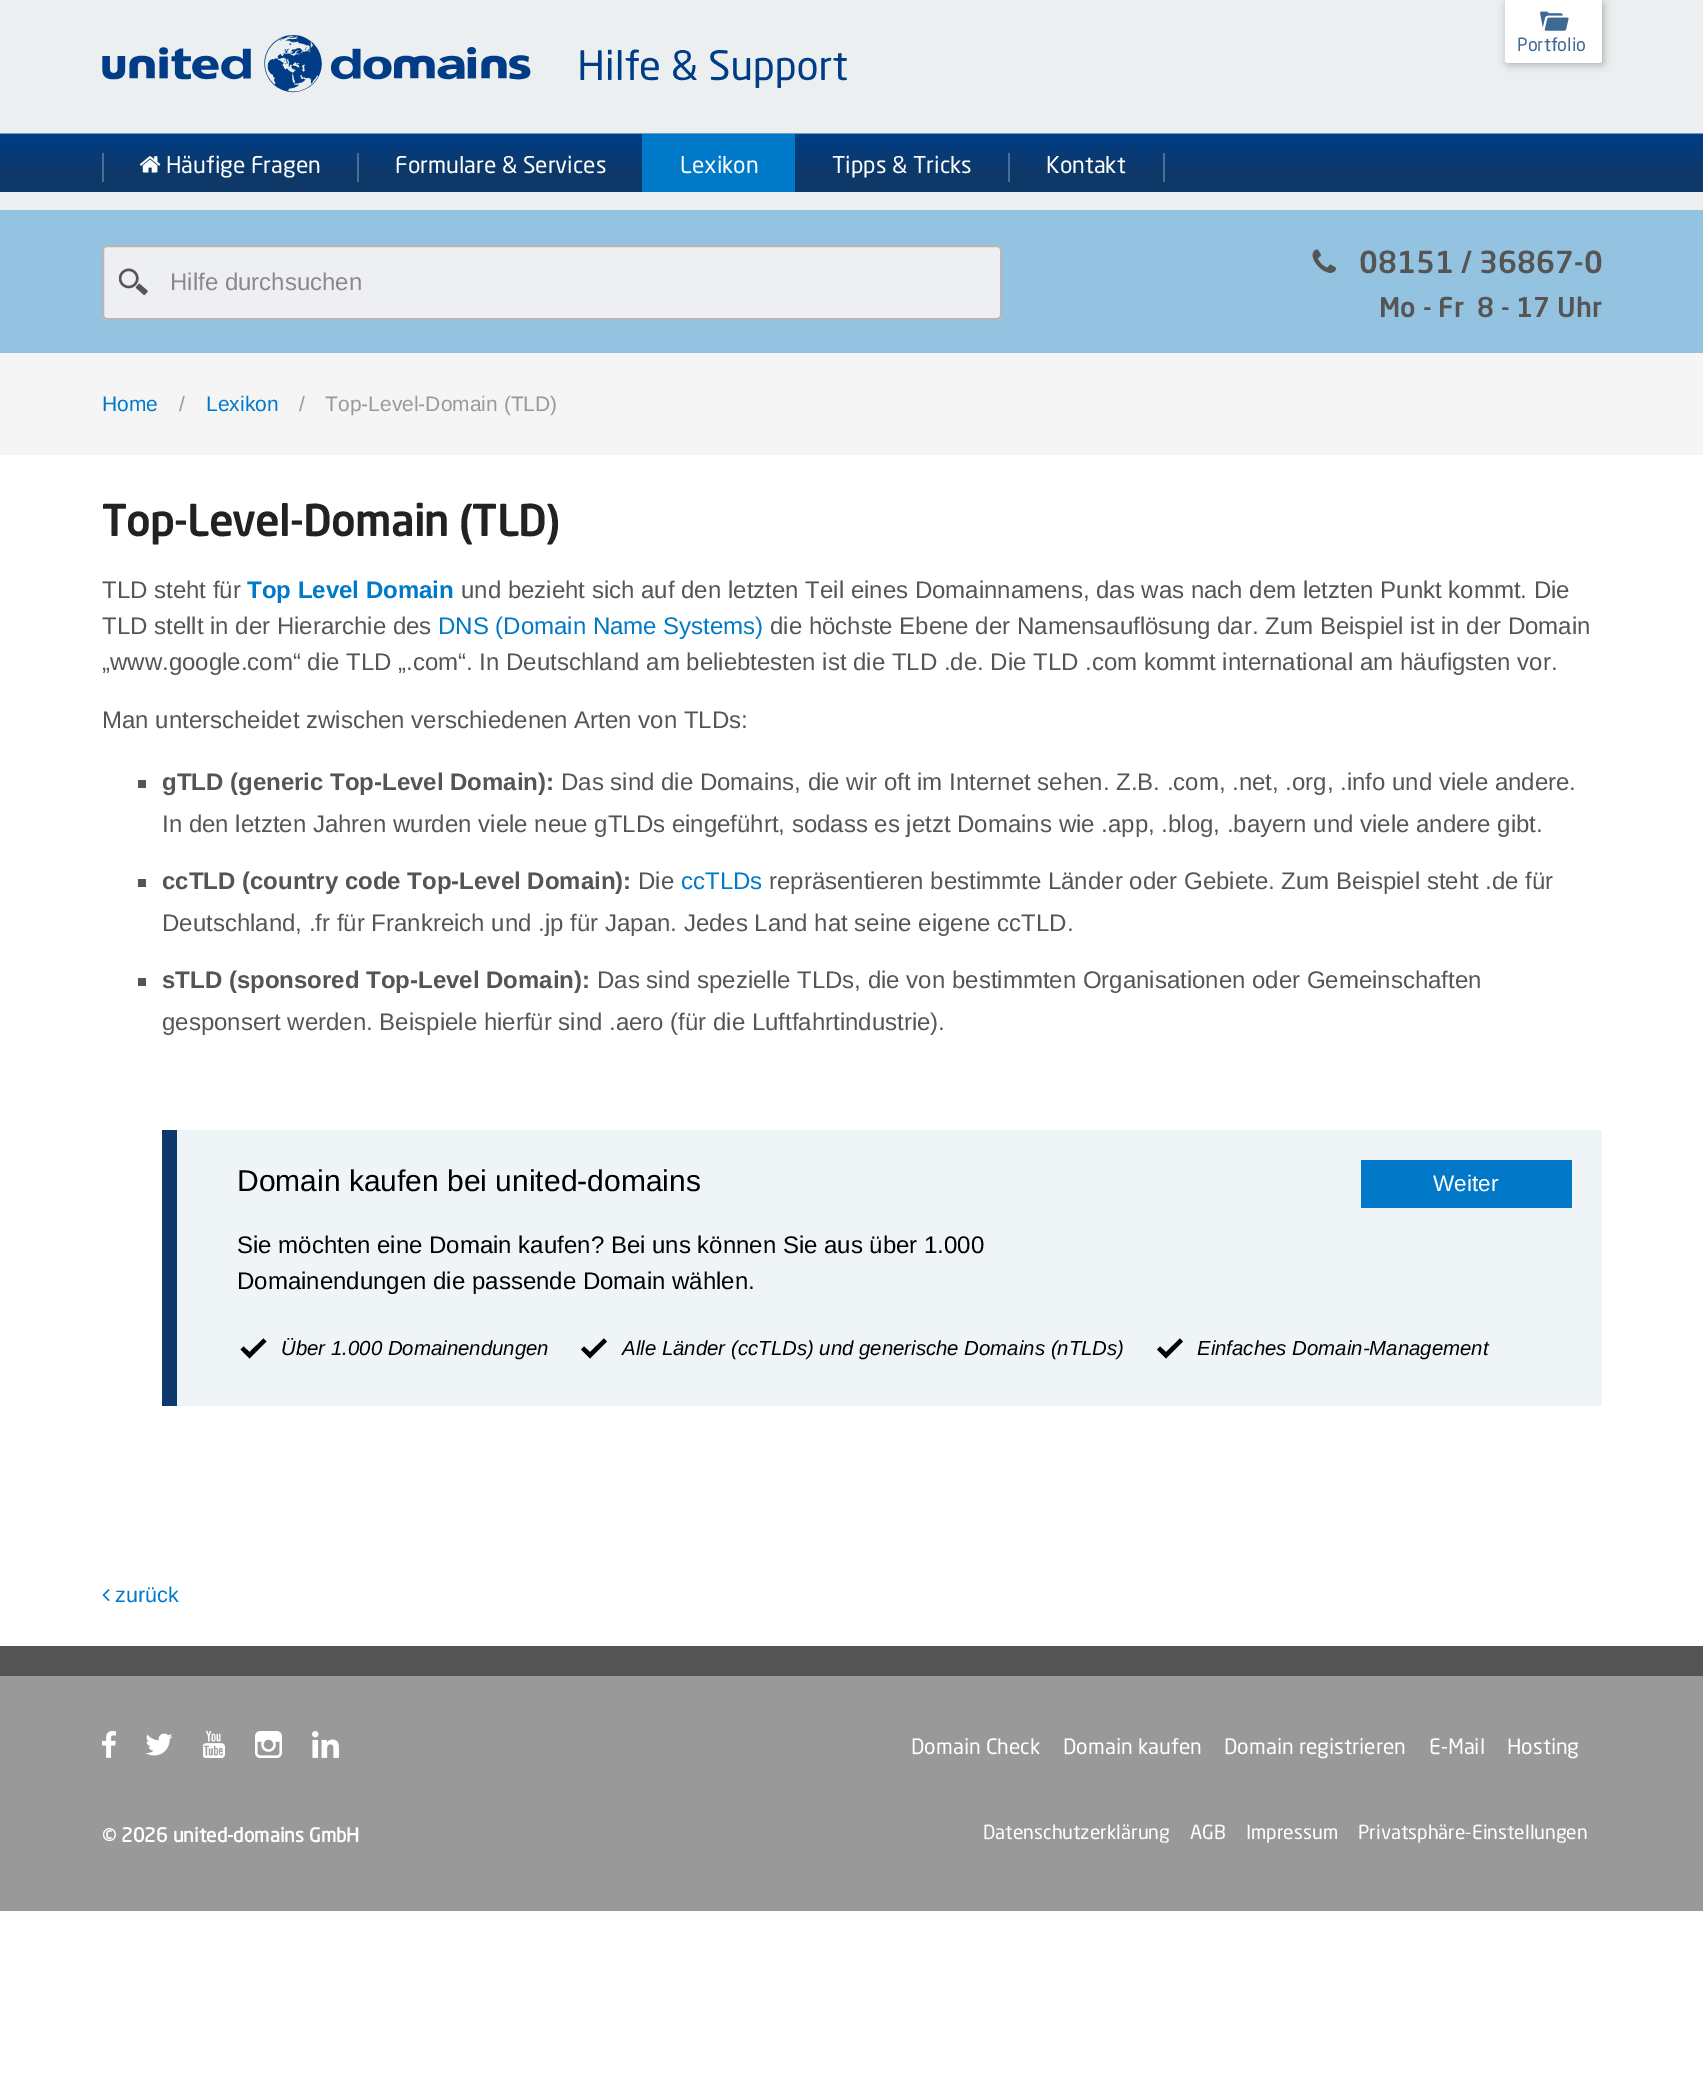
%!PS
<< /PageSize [1703 2095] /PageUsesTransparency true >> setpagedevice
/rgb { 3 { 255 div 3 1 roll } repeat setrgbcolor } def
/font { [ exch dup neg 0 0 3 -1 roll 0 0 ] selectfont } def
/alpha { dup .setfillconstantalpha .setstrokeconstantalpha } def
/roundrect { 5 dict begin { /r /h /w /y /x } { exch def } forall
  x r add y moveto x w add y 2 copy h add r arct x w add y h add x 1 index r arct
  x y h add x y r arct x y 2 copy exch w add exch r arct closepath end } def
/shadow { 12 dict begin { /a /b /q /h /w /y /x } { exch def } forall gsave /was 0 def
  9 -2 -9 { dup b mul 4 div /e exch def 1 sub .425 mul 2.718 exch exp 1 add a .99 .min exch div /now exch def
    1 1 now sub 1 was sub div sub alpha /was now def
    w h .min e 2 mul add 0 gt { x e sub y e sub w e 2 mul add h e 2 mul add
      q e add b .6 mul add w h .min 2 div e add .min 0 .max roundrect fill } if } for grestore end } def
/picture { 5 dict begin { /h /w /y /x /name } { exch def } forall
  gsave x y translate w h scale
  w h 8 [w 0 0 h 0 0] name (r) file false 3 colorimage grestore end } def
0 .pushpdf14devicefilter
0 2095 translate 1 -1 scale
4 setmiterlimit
255 255 255 rgb
0 0 1703 2095 rectfill
236 239 240 rgb
0 0 1703 210 rectfill
(img/1.rgb) 102 35 745 58 picture
0 0 0 rgb
1506 2 98 63 3 4 0.25 shadow
255 255 255 rgb
1505 0 moveto 1602 0 lineto 1602 60 lineto 1602 61.5 1600.5 63 1599 63 curveto 1508 63 lineto 1506.5 63 1505 61.5 1505 60 curveto closepath fill
(img/2.rgb) 1540 11 29 20 picture
(img/3.rgb) 0 133 1703 59 picture
69 112 157 rgb
102 153 2 29 rectfill
(img/4.rgb) 139 156 22 17 picture
[
  [357 153 2 29 69 112 157]
  [642 134 153 58 0 121 200]
  [1163 153 2 29 69 112 157]
  [1008 153 2 29 69 112 157]
  [0 210 1703 143 148 195 225]
] { aload pop rgb rectfill } forall
237 239 242 rgb
102 245 900 75 5 roundrect fill
(img/5.rgb) 119 268 29 28 picture
182 182 182 rgb
2 setlinewidth
103 246 898 73 4 roundrect stroke
(img/6.rgb) 1312 249 24 24 picture
[
  [0 353 1703 102 245 245 245]
  [138 780 8 8 85 85 85]
  [138 879 8 8 85 85 85]
  [138 978 8 8 85 85 85]
  [177 1130 1425 276 239 244 247]
  [162 1130 15 276 15 57 108]
  [1361 1160 211 48 1 121 200]
] { aload pop rgb rectfill } forall
0 0 0 rgb
266.5 1341.5 moveto 263.5 1338.5 lineto 249.5 1352 lineto 243.5 1346.5 lineto 240.5 1349.5 lineto 249.5 1358.5 lineto closepath fill
607 1341.5 moveto 604 1338.5 lineto 590 1352 lineto 584 1346.5 lineto 581 1349.5 lineto 590 1358.5 lineto closepath fill
1183 1341.5 moveto 1180 1338.5 lineto 1166 1352 lineto 1160 1346.5 lineto 1157 1349.5 lineto 1166 1358.5 lineto closepath fill
(img/7.rgb) 102 1589 8 12 picture
84 84 84 rgb
0 1646 1703 30 rectfill
153 153 153 rgb
0 1676 1703 235 rectfill
(img/8.rgb) 102 1731 14 27 picture
(img/9.rgb) 146 1733 27 23 picture
(img/10.rgb) 203 1731 22 27 picture
(img/11.rgb) 255 1731 27 27 picture
(img/12.rgb) 312 1731 27 27 picture
/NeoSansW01-Regular 18 font
62 105 148 rgb
1517 51 moveto (Portfolio) show
/NeoSansW01-Regular 22.75 font
255 255 255 rgb
[
  [(Häufige Fragen) 166 173]
  [(Formulare & Services) 395 173]
  [(Lexikon) 680 173]
  [(Tipps & Tricks) 832 173]
  [(Kontakt) 1046 173]
] { aload pop moveto show } forall
/LiberationSans-Regular 24 font
136 136 136 rgb
170 290 moveto (Hilfe durchsuchen) show
/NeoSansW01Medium-Medium 30 font
85 85 85 rgb
1359 273 moveto (08151 / 36867-0) show
/NeoSansW01Medium-Medium 27 font
1379 317 moveto (Mo - Fr) show
1477 317 moveto (8 - 17 Uhr) show
/LiberationSans-Regular 21 font
0 121 200 rgb
102 411 moveto (Home) show
153 153 153 rgb
179 411 moveto (/) show
0 121 200 rgb
206 411 moveto (Lexikon) show
153 153 153 rgb
299 411 moveto (/) show
325 411 moveto (Top-Level-Domain \(TLD\)) show
/NeoSansW01Medium-Medium 43.25 font
34 34 34 rgb
102 536 moveto -0.9 0 (Top-Level-Domain \(TLD\)) ashow
/LiberationSans-Regular 24 font
85 85 85 rgb
102 598 moveto (TLD steht für) show
/LiberationSans-Bold 24 font
0 121 200 rgb
247 598 moveto (Top Level Domain) show
/LiberationSans-Regular 24 font
85 85 85 rgb
461 598 moveto (und bezieht sich auf den letzten Teil eines Domainnamens, das was nach dem letzten Punkt kommt. Die) show
102 634 moveto (TLD stellt in der Hierarchie des) show
0 121 200 rgb
438 634 moveto (DNS \(Domain Name Systems\)) show
85 85 85 rgb
[
  [(die höchste Ebene der Namensauflösung dar. Zum Beispiel ist in der Domain) 770 634]
  [(„www.google.com“ die TLD „.com“. In Deutschland am beliebtesten ist die TLD .de. Die TLD .com kommt international am häufigsten vor.) 102 670]
  [(Man unterscheidet zwischen verschiedenen Arten von TLDs:) 102 728]
] { aload pop moveto show } forall
/LiberationSans-Bold 24 font
162 790 moveto (gTLD \(generic Top-Level Domain\):) show
/LiberationSans-Regular 24 font
561 790 moveto (Das sind die Domains, die wir oft im Internet sehen. Z.B. .com, .net, .org, .info und viele andere.) show
162 832 moveto (In den letzten Jahren wurden viele neue gTLDs eingeführt, sodass es jetzt Domains wie .app, .blog, .bayern und viele andere gibt.) show
/LiberationSans-Bold 24 font
162 889 moveto (ccTLD \(country code Top-Level Domain\):) show
/LiberationSans-Regular 24 font
638 889 moveto (Die) show
0 121 200 rgb
681 889 moveto (ccTLDs) show
85 85 85 rgb
769 889 moveto (repräsentieren bestimmte Länder oder Gebiete. Zum Beispiel steht .de für) show
162 931 moveto (Deutschland, .fr für Frankreich und .jp für Japan. Jedes Land hat seine eigene ccTLD.) show
/LiberationSans-Bold 24 font
162 988 moveto (sTLD \(sponsored Top-Level Domain\):) show
/LiberationSans-Regular 24 font
597 988 moveto (Das sind spezielle TLDs, die von bestimmten Organisationen oder Gemeinschaften) show
162 1030 moveto (gesponsert werden. Beispiele hierfür sind .aero \(für die Luftfahrtindustrie\).) show
/LiberationSans-Regular 30 font
0 0 0 rgb
237 1191 moveto (Domain kaufen bei united-domains) show
/LiberationSans-Regular 24 font
237 1253 moveto (Sie möchten eine Domain kaufen? Bei uns können Sie aus über 1.000) show
237 1289 moveto (Domainendungen die passende Domain wählen.) show
/LiberationSans-Regular 22.5 font
255 255 255 rgb
1433 1191 moveto (Weiter) show
/LiberationSans-Italic 20.4 font
0 0 0 rgb
[
  [(Über 1.000 Domainendungen) 281 1355]
  [(Alle Länder \(ccTLDs\) und generische Domains \(nTLDs\)) 622 1355]
  [(Einfaches Domain-Management) 1197 1355]
] { aload pop moveto show } forall
/LiberationSans-Regular 21.5 font
0 121 200 rgb
115 1602 moveto (zurück) show
/NeoSansW01-Regular 21 font
255 255 255 rgb
[
  [(Domain Check) 911 1754]
  [(Domain kaufen) 1063 1754]
  [(Domain registrieren) 1224 1754]
  [(E-Mail) 1429 1754]
  [(Hosting) 1507 1754]
] { aload pop moveto show } forall
/NeoSansW01-Bold 19.25 font
102 1842 moveto (© 2026 united-domains GmbH) show
/NeoSansW01-Regular 19.25 font
[
  [(Datenschutzerklärung) 983 1839]
  [(AGB) 1190 1839]
  [(Impressum) 1246 1839]
  [(Privatsphäre-Einstellungen) 1358 1839]
] { aload pop moveto show } forall
.poppdf14devicefilter showpage
